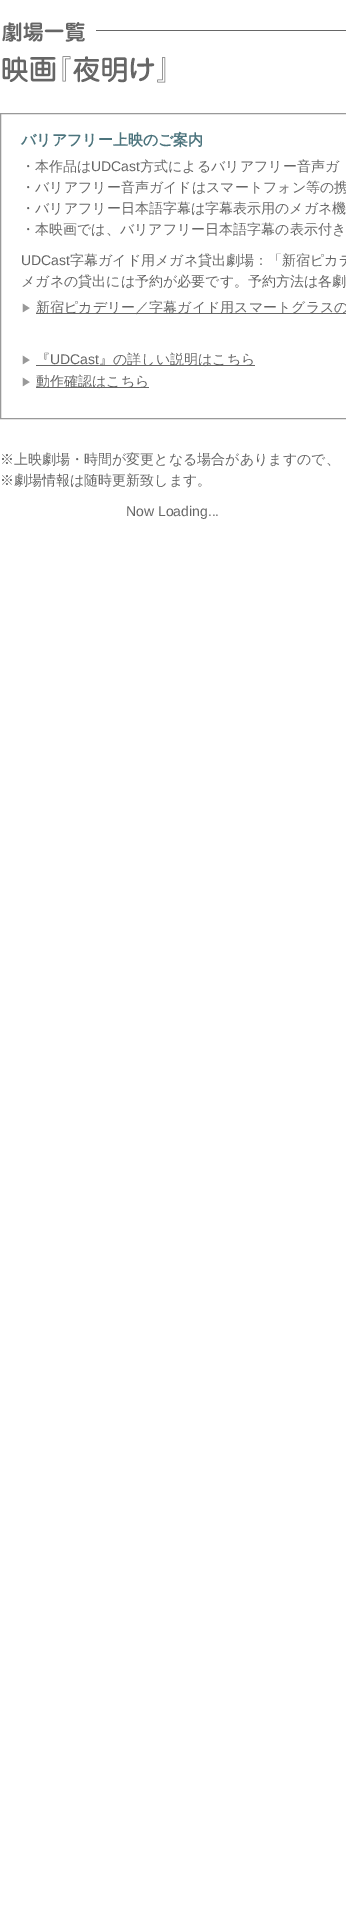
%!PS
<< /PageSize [346 1912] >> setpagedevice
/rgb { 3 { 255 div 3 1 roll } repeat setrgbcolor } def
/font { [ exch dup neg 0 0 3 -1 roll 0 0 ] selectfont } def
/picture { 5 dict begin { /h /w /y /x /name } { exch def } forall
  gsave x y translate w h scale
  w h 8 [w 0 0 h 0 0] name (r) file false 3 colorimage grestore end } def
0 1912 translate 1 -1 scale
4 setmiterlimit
255 255 255 rgb
0 0 346 1912 rectfill
(img/1.rgb) 2 22 344 61 picture
153 153 153 rgb
0.5 113.5 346 305 rectstroke
[
  [36 313 310 1 102 102 102]
  [36 365 219 1 102 102 102]
  [36 387 113 1 102 102 102]
] { aload pop rgb rectfill } forall
/WenQuanYiZenHei-Bold 15 font
76 116 125 rgb
21 145 moveto (バリアフリー上映のご案内) show
/WenQuanYiZenHei-Medium 14 font
102 102 102 rgb
21 171 moveto (・本作品は) show
/LiberationSans-Regular 14 font
91 171 moveto (UDCast) show
/WenQuanYiZenHei-Medium 14 font
[
  [(方式によるバリアフリー音声ガ) 140 171]
  [(・バリアフリー音声ガイドはスマートフォン等の携) 21 192]
  [(・バリアフリー日本語字幕は字幕表示用のメガネ機) 21 213]
  [(・本映画では、バリアフリー日本語字幕の表示付き) 21 234]
] { aload pop moveto show } forall
/LiberationSans-Regular 14 font
21 265 moveto (UDCast) show
/WenQuanYiZenHei-Medium 14 font
70 265 moveto (字幕ガイド用メガネ貸出劇場：「新宿ピカデ) show
21 286 moveto (メガネの貸出には予約が必要です。予約方法は各劇) show
/WenQuanYiZenHei-Medium 11 font
153 153 153 rgb
21 312 moveto (▶) show
/WenQuanYiZenHei-Medium 14 font
102 102 102 rgb
36 312 moveto (新宿ピカデリー／字幕ガイド用スマートグラスの) show
/WenQuanYiZenHei-Medium 11 font
153 153 153 rgb
21 364 moveto (▶) show
/WenQuanYiZenHei-Medium 14 font
102 102 102 rgb
36 364 moveto (『) show
/LiberationSans-Regular 14 font
50 364 moveto (UDCast) show
/WenQuanYiZenHei-Medium 14 font
99 364 moveto (』の詳しい説明はこちら) show
/WenQuanYiZenHei-Medium 11 font
153 153 153 rgb
21 386 moveto (▶) show
/WenQuanYiZenHei-Medium 14 font
102 102 102 rgb
[
  [(動作確認はこちら) 36 386]
  [(※上映劇場・時間が変更となる場合がありますので、) 0 464]
  [(※劇場情報は随時更新致します。) 0 485]
] { aload pop moveto show } forall
/LiberationSans-Regular 14 font
126 516 moveto (Now Loading...) show
showpage
